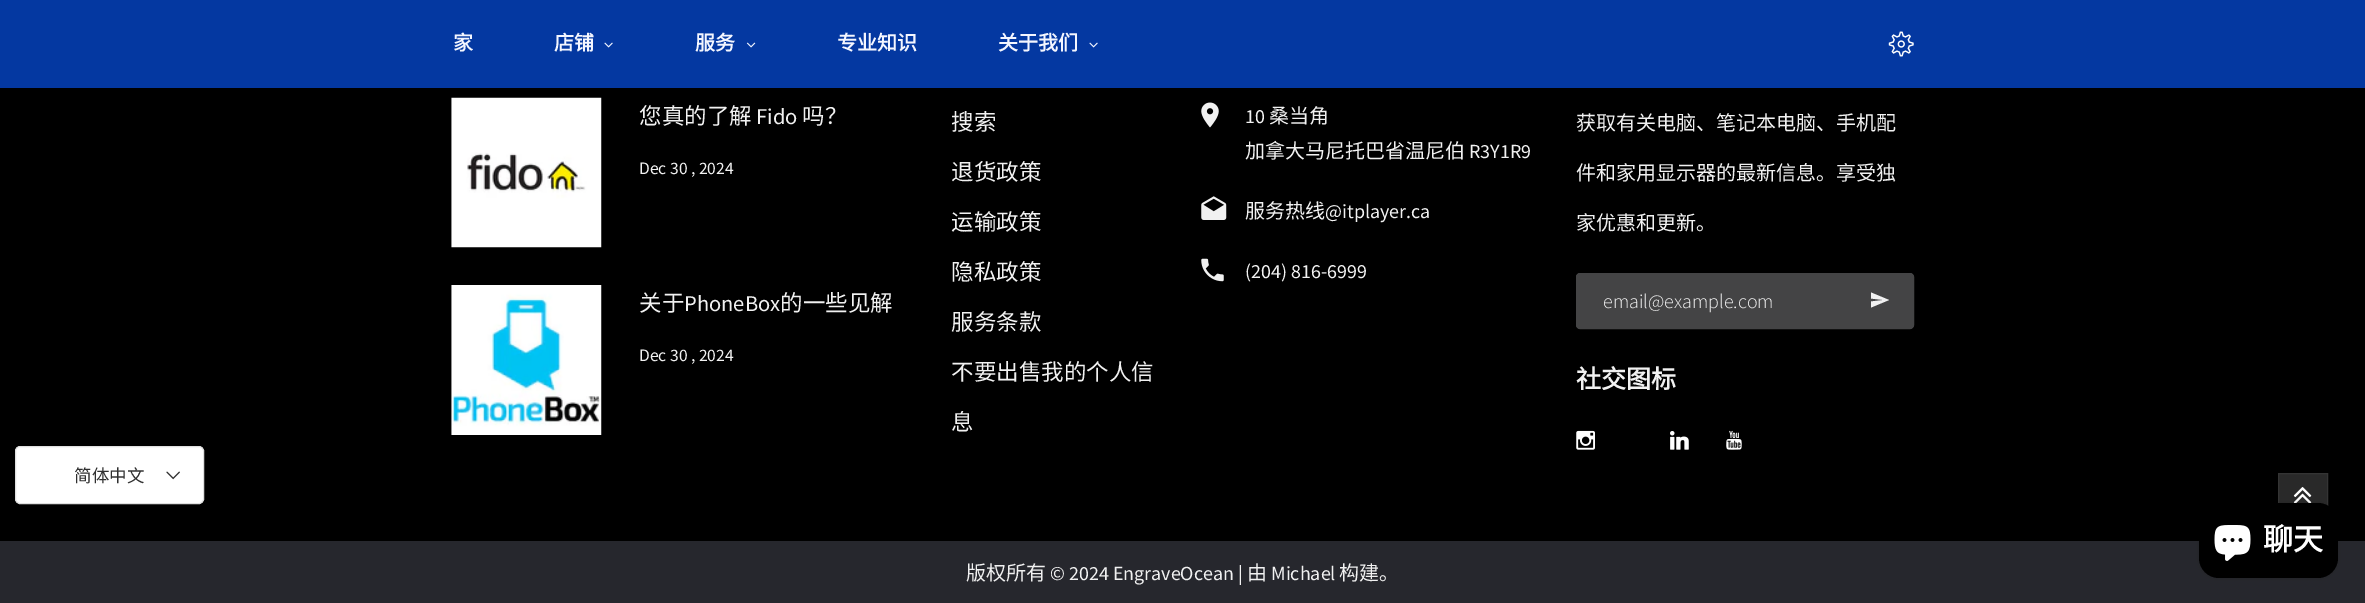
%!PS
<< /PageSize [2365 603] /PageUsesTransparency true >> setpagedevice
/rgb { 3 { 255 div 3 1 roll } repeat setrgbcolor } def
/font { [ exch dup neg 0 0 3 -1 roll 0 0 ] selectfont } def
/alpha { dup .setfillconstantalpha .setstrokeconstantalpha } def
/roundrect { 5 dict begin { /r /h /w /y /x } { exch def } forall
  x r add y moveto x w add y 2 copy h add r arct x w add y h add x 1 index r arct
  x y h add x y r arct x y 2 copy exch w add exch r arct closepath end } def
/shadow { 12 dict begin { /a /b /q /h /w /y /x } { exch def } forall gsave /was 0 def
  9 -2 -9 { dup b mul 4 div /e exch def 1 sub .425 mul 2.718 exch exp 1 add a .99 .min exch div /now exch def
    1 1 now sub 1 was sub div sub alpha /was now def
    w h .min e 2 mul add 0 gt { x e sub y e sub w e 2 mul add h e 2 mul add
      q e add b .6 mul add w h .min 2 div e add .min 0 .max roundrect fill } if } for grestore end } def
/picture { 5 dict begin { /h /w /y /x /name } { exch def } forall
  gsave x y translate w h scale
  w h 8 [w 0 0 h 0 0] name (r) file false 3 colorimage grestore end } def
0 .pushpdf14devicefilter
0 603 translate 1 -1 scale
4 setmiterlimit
0 0 0 rgb
0 0 2365 603 rectfill
4 56 161 rgb
0 0 2365 88 rectfill
(img/1.rgb) 604 42 9 6 picture
(img/2.rgb) 746 42 10 6 picture
(img/1.rgb) 1089 42 9 6 picture
(img/3.rgb) 1888 31 26 26 picture
255 255 255 rgb
15.5 446.5 188 57 4.5 roundrect gsave fill grestore
224 224 224 rgb
stroke
(img/4.rgb) 166 471 14 9 picture
(img/5.rgb) 451 97 151 151 picture
(img/6.rgb) 451 285 151 150 picture
(img/7.rgb) 1201 102 18 26 picture
(img/8.rgb) 1201 196 26 24 picture
(img/9.rgb) 1201 258 23 24 picture
68 68 69 rgb
1576.5 273.5 337 55 3.5 roundrect gsave fill grestore
stroke
241 241 241 rgb
1871 307.5 moveto 1871 301.5 lineto 1884 300 lineto 1871 298.5 lineto 1871 292.5 lineto 1889 300 lineto closepath fill
(img/10.rgb) 1576 430 19 20 picture
(img/11.rgb) 1670 431 19 19 picture
(img/12.rgb) 1726 430 16 20 picture
38 39 45 rgb
0 541 2365 62 rectfill
41 41 41 rgb
2279 474 48 32 rectfill
52 52 52 rgb
2278.5 473.5 49 49 rectstroke
(img/13.rgb) 2293 487 19 16 picture
0 0 0 rgb
2199 503 139 75 20 3 0.15 shadow
2199 503 139 75 20 roundrect fill
(img/14.rgb) 2214 525 37 36 picture
/NotoSansCJKSC-Bold 20 font
244 246 255 rgb
[
  [(家) 453 50]
  [(店铺) 554 50]
  [(服务) 695 50]
  [(专业知识) 837 50]
  [(关于我们) 998 50]
] { aload pop moveto show } forall
/NotoSansCJKSC-Regular 17.5 font
48 48 48 rgb
74 482 moveto (简体中文) show
/NotoSansCJKSC-Regular 22.5 font
241 241 241 rgb
639 124 moveto (您真的了解) show
/SourceSansPro-Regular 22.5 font
756 124 moveto (Fido) show
/NotoSansCJKSC-Regular 22.5 font
802 124 moveto (吗？) show
/SourceSansPro-Regular 17.5 font
639 174 moveto (Dec 30 , 2024) show
/NotoSansCJKSC-Regular 22.5 font
639 311 moveto (关于) show
/SourceSansPro-Regular 22.5 font
684 311 moveto (PhoneBox) show
/NotoSansCJKSC-Regular 22.5 font
780 311 moveto (的一些见解) show
/SourceSansPro-Regular 17.5 font
639 361 moveto (Dec 30 , 2024) show
/NotoSansCJKSC-Regular 22.5 font
[
  [(搜索) 951 130]
  [(退货政策) 951 180]
  [(运输政策) 951 230]
  [(隐私政策) 951 280]
  [(服务条款) 951 330]
  [(不要出售我的个人信) 951 380]
  [(息) 951 430]
] { aload pop moveto show } forall
/SourceSansPro-Regular 20 font
1245 123 moveto (10) show
/NotoSansCJKSC-Regular 20 font
1269 123 moveto (桑当角) show
1245 158 moveto (加拿大马尼托巴省温尼伯) show
/SourceSansPro-Regular 20 font
1469 158 moveto (R3Y1R9) show
/NotoSansCJKSC-Regular 20 font
1245 218 moveto (服务热线) show
/SourceSansPro-Regular 20 font
1325 218 moveto (@itplayer.ca) show
1245 278 moveto (\(204\) 816-6999) show
/NotoSansCJKSC-Regular 20 font
[
  [(获取有关电脑、笔记本电脑、手机配) 1576 130]
  [(件和家用显示器的最新信息。享受独) 1576 180]
  [(家优惠和更新。) 1576 230]
] { aload pop moveto show } forall
/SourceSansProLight-Light 20 font
1603 308 moveto (email@example.com) show
/NotoSansCJKSC-Bold 25 font
1576 388 moveto (社交图标) show
/NotoSansCJKSC-Regular 20 font
966 580 moveto (版权所有) show
/SourceSansPro-Regular 20 font
1050 580 moveto (© 2024 EngraveOcean |) show
/NotoSansCJKSC-Regular 20 font
1247 580 moveto (由) show
/SourceSansPro-Regular 20 font
1271 580 moveto (Michael) show
/NotoSansCJKSC-Regular 20 font
1339 580 moveto (构建。) show
/NotoSansCJKSC-Bold 30 font
255 255 255 rgb
2263 550 moveto (聊天) show
.poppdf14devicefilter showpage
